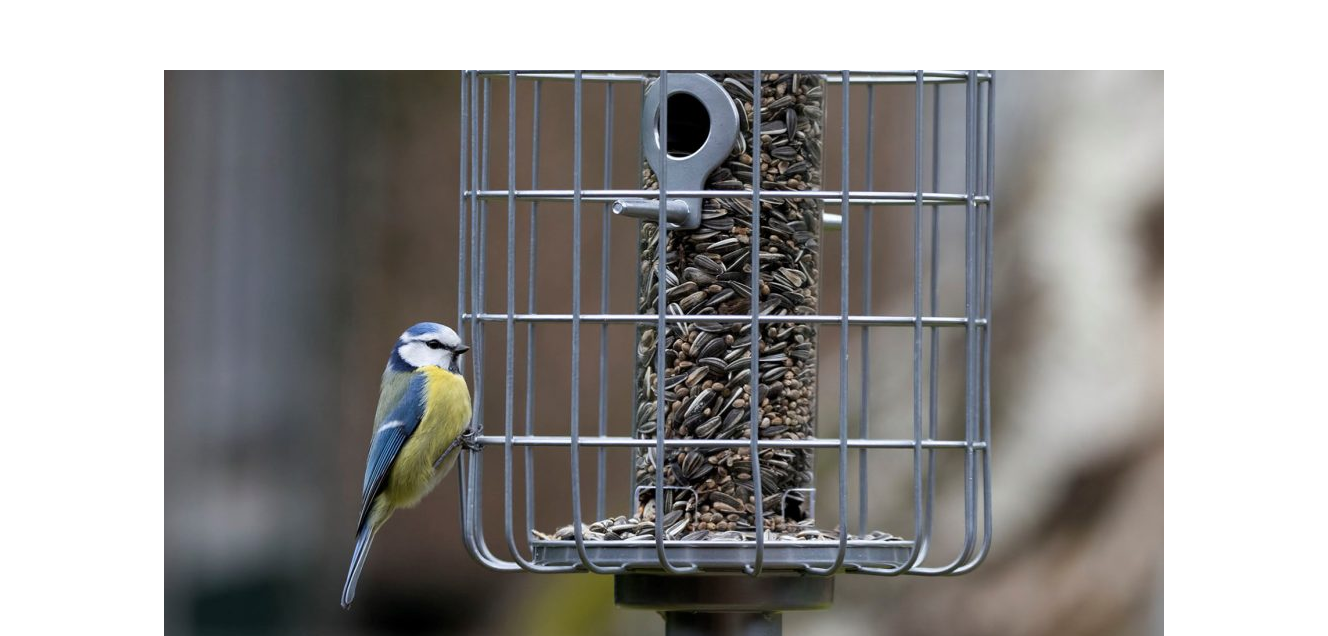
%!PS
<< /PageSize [1328 636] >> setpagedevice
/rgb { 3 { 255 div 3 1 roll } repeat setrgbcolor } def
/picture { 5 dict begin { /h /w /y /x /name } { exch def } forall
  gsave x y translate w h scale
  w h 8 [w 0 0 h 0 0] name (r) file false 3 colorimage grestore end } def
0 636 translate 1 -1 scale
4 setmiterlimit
255 255 255 rgb
0 0 1328 636 rectfill
(img/1.rgb) 164 70 1000 566 picture
showpage
